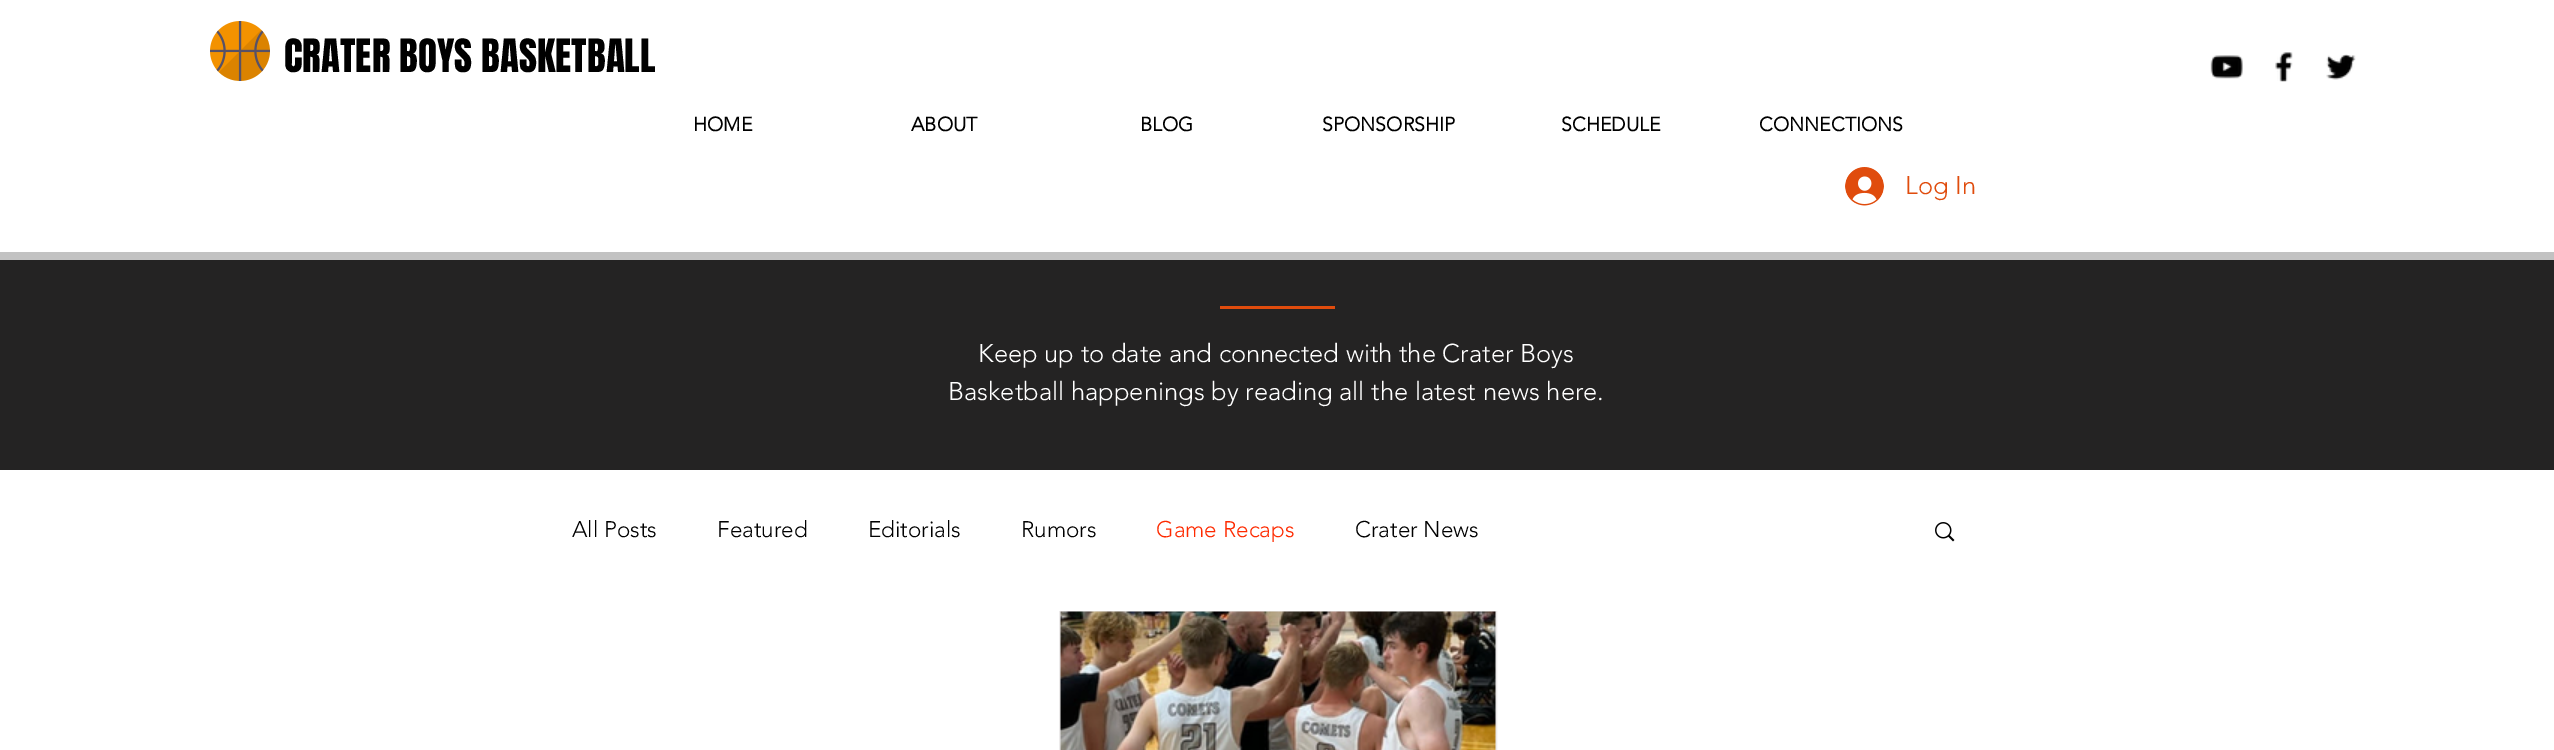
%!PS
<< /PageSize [2554 750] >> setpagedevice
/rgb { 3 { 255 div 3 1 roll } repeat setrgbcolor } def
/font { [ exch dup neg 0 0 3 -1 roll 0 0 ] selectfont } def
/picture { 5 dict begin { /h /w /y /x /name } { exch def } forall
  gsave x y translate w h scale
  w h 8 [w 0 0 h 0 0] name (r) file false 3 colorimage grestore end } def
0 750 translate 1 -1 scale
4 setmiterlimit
255 255 255 rgb
0 0 2554 750 rectfill
(img/1.rgb) 210 21 60 60 picture
(img/2.rgb) 2210 55 33 24 picture
(img/3.rgb) 2275 52 18 30 picture
(img/4.rgb) 2326 54 30 26 picture
(img/5.rgb) 1845 167 39 39 picture
[
  [0 252 2554 8 194 194 194]
  [0 260 2554 210 36 35 35]
  [1220 306 115 3 224 76 13]
] { aload pop rgb rectfill } forall
(img/6.rgb) 1935 522 20 20 picture
237 235 235 rgb
2 setlinewidth
1060 612 436 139 rectstroke
(img/7.rgb) 1060 611 436 139 picture
/Anton-Regular 39 font
0 0 0 rgb
284 72 moveto (CRATER BOYS BASKETBALL) show
/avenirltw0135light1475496-Bold 19.5 font
[
  [(HOME) 693 131]
  [(ABOUT) 911 131]
  [(BLOG) 1140 131]
  [(SPONSORSHIP) 1322 131]
  [(SCHEDULE) 1561 131]
  [(CONNECTIONS) 1759 131]
] { aload pop moveto show } forall
/avenirltw0135light1475496-Light 25.5 font
224 76 13 rgb
1905 194 moveto (Log In) show
255 255 255 rgb
978 362 moveto (Keep up to date and connected with the Crater Boys) show
948 400 moveto (Basketball happenings by reading all the latest news here.) show
/avenirltw0135light1475496-Light 22.5 font
0 0 0 rgb
[
  [(All Posts) 572 537]
  [(Featured) 717 537]
  [(Editorials) 868 537]
  [(Rumors) 1021 537]
] { aload pop moveto show } forall
254 42 0 rgb
1156 537 moveto (Game Recaps) show
0 0 0 rgb
1355 537 moveto (Crater News) show
showpage
